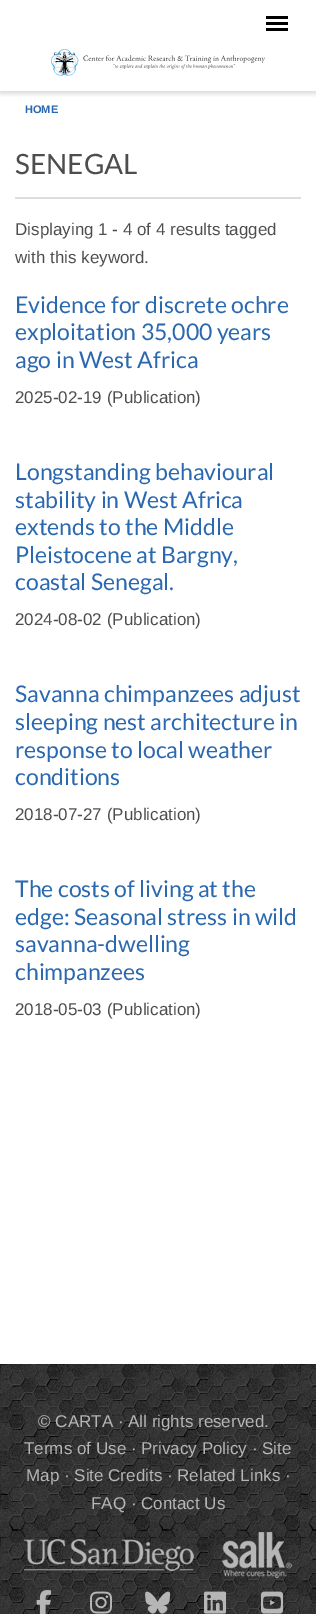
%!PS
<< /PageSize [316 1614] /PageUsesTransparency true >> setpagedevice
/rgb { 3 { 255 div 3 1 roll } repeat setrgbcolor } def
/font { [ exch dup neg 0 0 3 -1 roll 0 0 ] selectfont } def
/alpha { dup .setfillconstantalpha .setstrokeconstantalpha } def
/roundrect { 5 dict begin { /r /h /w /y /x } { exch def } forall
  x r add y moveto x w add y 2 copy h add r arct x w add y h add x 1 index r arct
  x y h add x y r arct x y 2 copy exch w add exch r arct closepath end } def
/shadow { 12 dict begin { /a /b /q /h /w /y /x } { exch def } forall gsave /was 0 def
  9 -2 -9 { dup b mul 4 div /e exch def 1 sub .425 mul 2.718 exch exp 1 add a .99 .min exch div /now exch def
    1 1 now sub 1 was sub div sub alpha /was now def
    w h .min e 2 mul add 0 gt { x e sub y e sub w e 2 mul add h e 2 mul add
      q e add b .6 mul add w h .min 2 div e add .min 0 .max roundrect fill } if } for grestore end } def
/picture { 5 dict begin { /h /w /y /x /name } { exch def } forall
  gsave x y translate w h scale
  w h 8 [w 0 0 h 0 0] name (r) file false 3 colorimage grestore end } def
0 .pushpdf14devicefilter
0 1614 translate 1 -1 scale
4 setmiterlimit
255 255 255 rgb
0 0 316 1614 rectfill
gsave
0 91 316 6 rectclip
100 100 100 rgb
0 2 316 91 0 3 0.3 shadow
grestore
[
  [266 16 22 3 0 0 0]
  [266 22 22 3 0 0 0]
  [266 28 22 3 0 0 0]
] { aload pop rgb rectfill } forall
(img/1.rgb) 51 49 214 27 picture
221 221 221 rgb
15 197 286 2 rectfill
(img/2.rgb) 0 1364 316 250 picture
(img/3.rgb) 24 1539 170 32 picture
(img/4.rgb) 222 1532 70 46 picture
(img/5.rgb) 36 1590 16 24 picture
(img/6.rgb) 90 1591 23 23 picture
(img/7.rgb) 145 1591 26 23 picture
(img/8.rgb) 204 1591 23 23 picture
(img/9.rgb) 261 1591 23 23 picture
/LiberationSans-Bold 11 font
42 104 175 rgb
25 113 moveto (HOME) show
/Lato-Regular 28 font
77 77 77 rgb
15 174 moveto (SENEGAL) show
/LiberationSans-Regular 17 font
15 235 moveto (Displaying 1 - 4 of 4 results tagged) show
15 263 moveto (with this keyword.) show
/Lato-Regular 23 font
42 104 175 rgb
[
  [(Evidence for discrete ochre) 15 313]
  [(exploitation 35,000 years) 15 340]
  [(ago in West Africa) 15 368]
] { aload pop moveto show } forall
/LiberationSans-Regular 17 font
77 77 77 rgb
15 403 moveto (2025-02-19 \(Publication\)) show
/Lato-Regular 23 font
42 104 175 rgb
[
  [(Longstanding behavioural) 15 480]
  [(stability in West Africa) 15 508]
  [(extends to the Middle) 15 535]
  [(Pleistocene at Bargny,) 15 563]
  [(coastal Senegal.) 15 590]
] { aload pop moveto show } forall
/LiberationSans-Regular 17 font
77 77 77 rgb
15 625 moveto (2024-08-02 \(Publication\)) show
/Lato-Regular 23 font
42 104 175 rgb
[
  [(Savanna chimpanzees adjust) 15 702]
  [(sleeping nest architecture in) 15 730]
  [(response to local weather) 15 758]
  [(conditions) 15 785]
] { aload pop moveto show } forall
/LiberationSans-Regular 17 font
77 77 77 rgb
15 820 moveto (2018-07-27 \(Publication\)) show
/Lato-Regular 23 font
42 104 175 rgb
[
  [(The costs of living at the) 15 897]
  [(edge: Seasonal stress in wild) 15 925]
  [(savanna-dwelling) 15 952]
  [(chimpanzees) 15 980]
] { aload pop moveto show } forall
/LiberationSans-Regular 17 font
77 77 77 rgb
15 1015 moveto (2018-05-03 \(Publication\)) show
182 182 182 rgb
[
  [(© CARTA · All rights reserved.) 38 1427]
  [(Terms of Use · Privacy Policy · Site) 24 1454]
  [(Map · Site Credits · Related Links ·) 26 1481]
  [(FAQ · Contact Us) 91 1509]
] { aload pop moveto show } forall
.poppdf14devicefilter showpage
